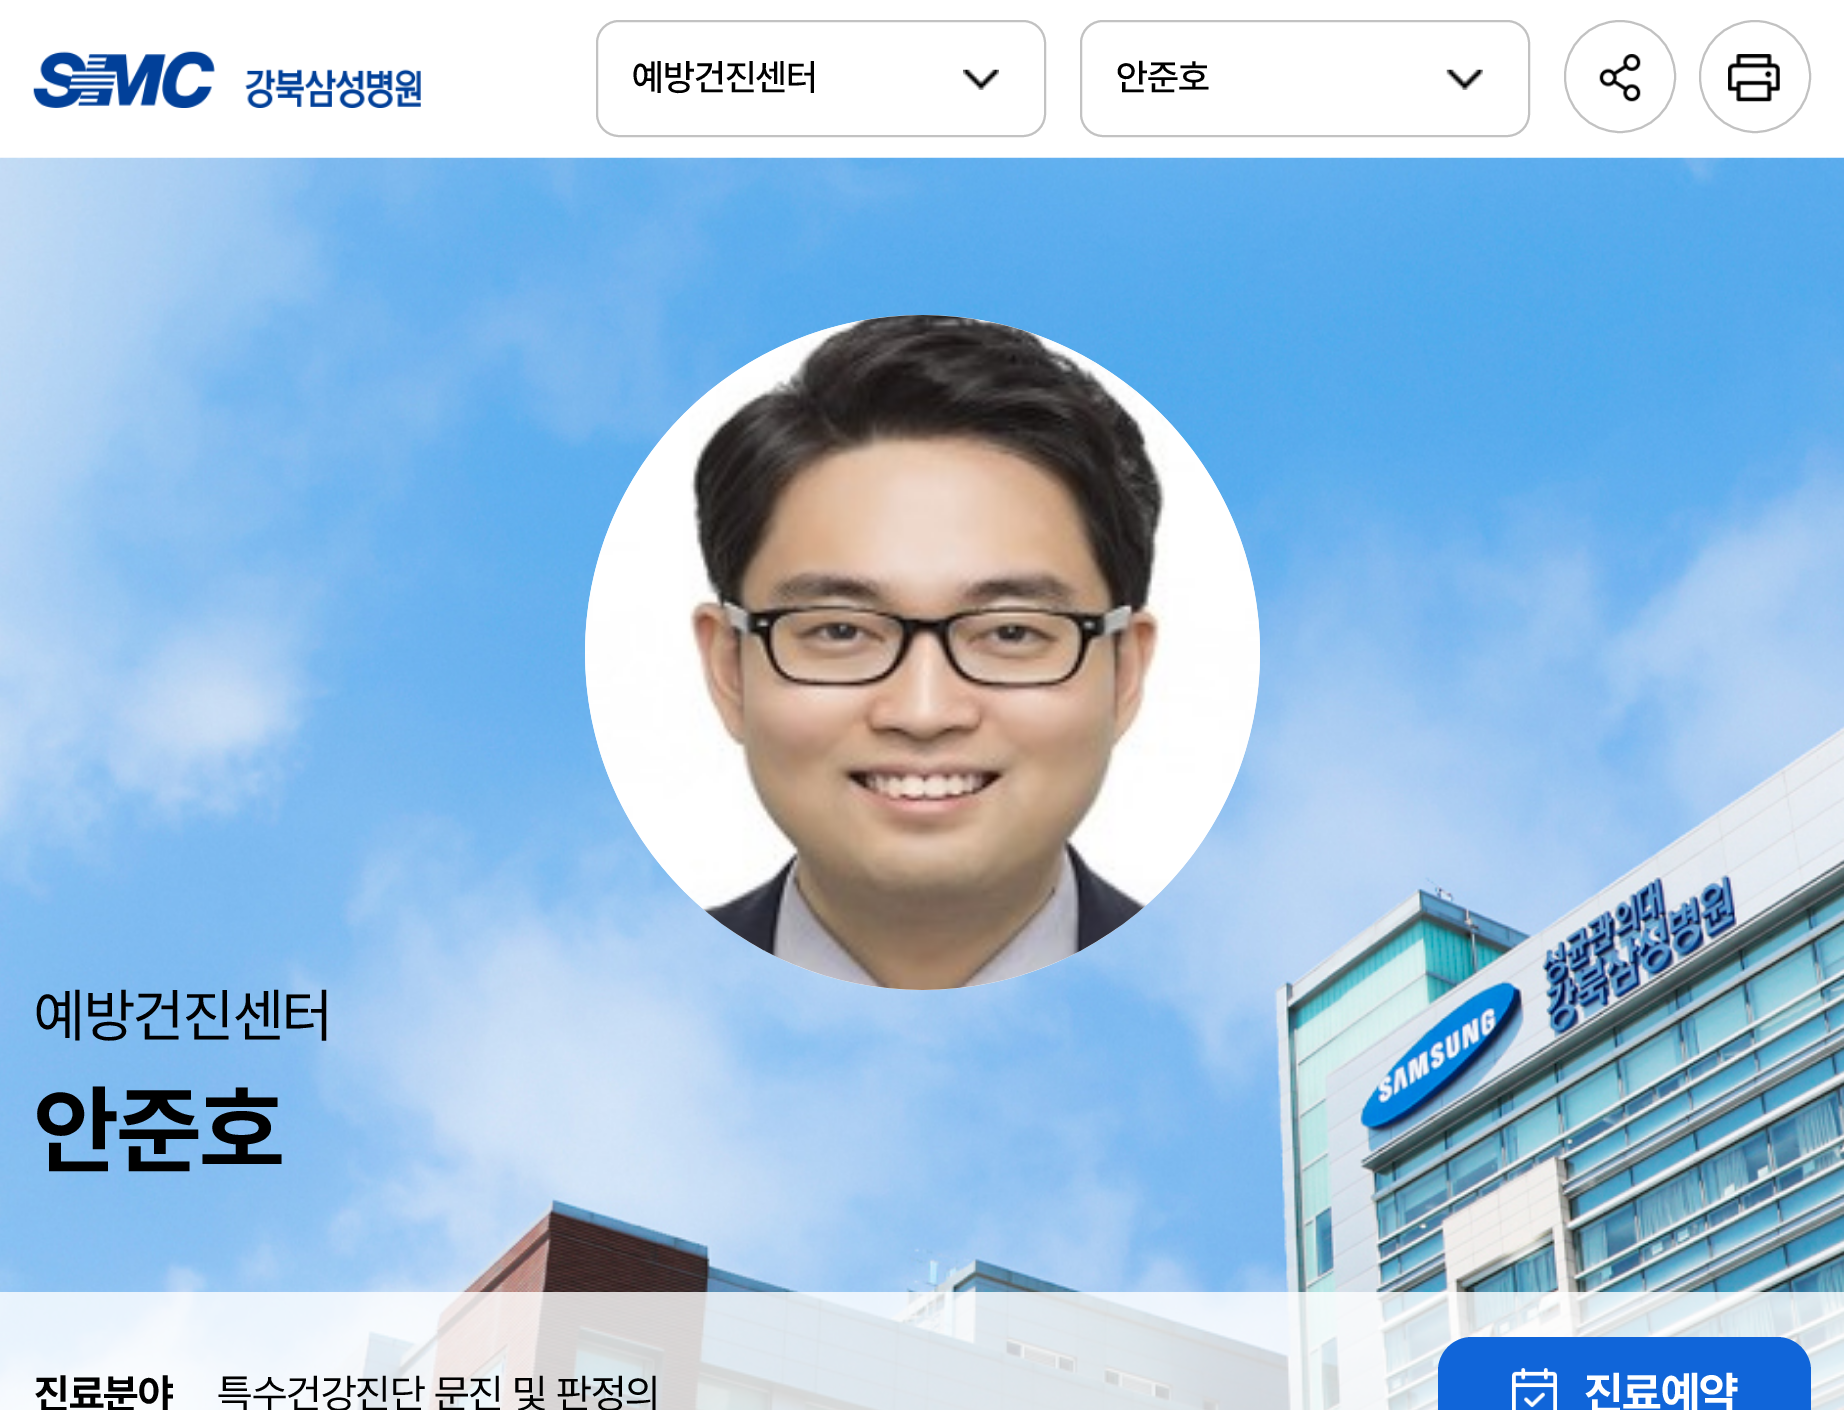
%!PS
<< /PageSize [1844 1410] /PageUsesTransparency true >> setpagedevice
/rgb { 3 { 255 div 3 1 roll } repeat setrgbcolor } def
/font { [ exch dup neg 0 0 3 -1 roll 0 0 ] selectfont } def
/alpha { dup .setfillconstantalpha .setstrokeconstantalpha } def
/circle { newpath 0 360 arc closepath } def
/roundrect { 5 dict begin { /r /h /w /y /x } { exch def } forall
  x r add y moveto x w add y 2 copy h add r arct x w add y h add x 1 index r arct
  x y h add x y r arct x y 2 copy exch w add exch r arct closepath end } def
/picture { 5 dict begin { /h /w /y /x /name } { exch def } forall
  gsave x y translate w h scale
  w h 8 [w 0 0 h 0 0] name (r) file false 3 colorimage grestore end } def
0 .pushpdf14devicefilter
0 1410 translate 1 -1 scale
4 setmiterlimit
255 255 255 rgb
0 0 1844 1410 rectfill
(img/1.rgb) 33 51 388 57 picture
(img/2.rgb) 963 69 36 21 picture
194 194 194 rgb
2 setlinewidth
597 21 448 115 22 roundrect stroke
(img/3.rgb) 1446 69 37 21 picture
1081 21 448 115 22 roundrect stroke
(img/4.rgb) 1599 54 42 48 picture
1565 21 110 111 55 roundrect stroke
(img/5.rgb) 1728 54 52 48 picture
1700 21 110 111 55 roundrect stroke
(img/6.rgb) 0 157 1844 1253 picture
255 255 255 rgb
922.5 652.5 337.5 circle fill
(img/7.rgb) 585 315 675 675 picture
0.8 alpha
0 1292 1844 118 rectfill
1 alpha
16 101 217 rgb
1438 1337 373 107 34 roundrect fill
(img/8.rgb) 1512 1368 45 42 picture
/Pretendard-Medium 36.75 font
0 0 0 rgb
632 90 moveto -0.9 0 (예방건진센터) ashow
1116 90 moveto -0.9 0 (안준호) ashow
/Pretendard-Regular 58.5 font
34 1036 moveto -0.9 0 (예방건진센터) ashow
/Pretendard-Bold 97 font
34 1164 moveto -0.9 0 (안준호) ashow
/Pretendard-Bold 41 font
34 1408 moveto -0.9 0 (진료분야) ashow
/Pretendard-Regular 41 font
217 1408 moveto -0.9 0 (특수건강진단 문진 및 판정의) ashow
/Pretendard-Bold 45.5 font
255 255 255 rgb
1584 1409 moveto -0.9 0 (진료예약) ashow
.poppdf14devicefilter showpage
